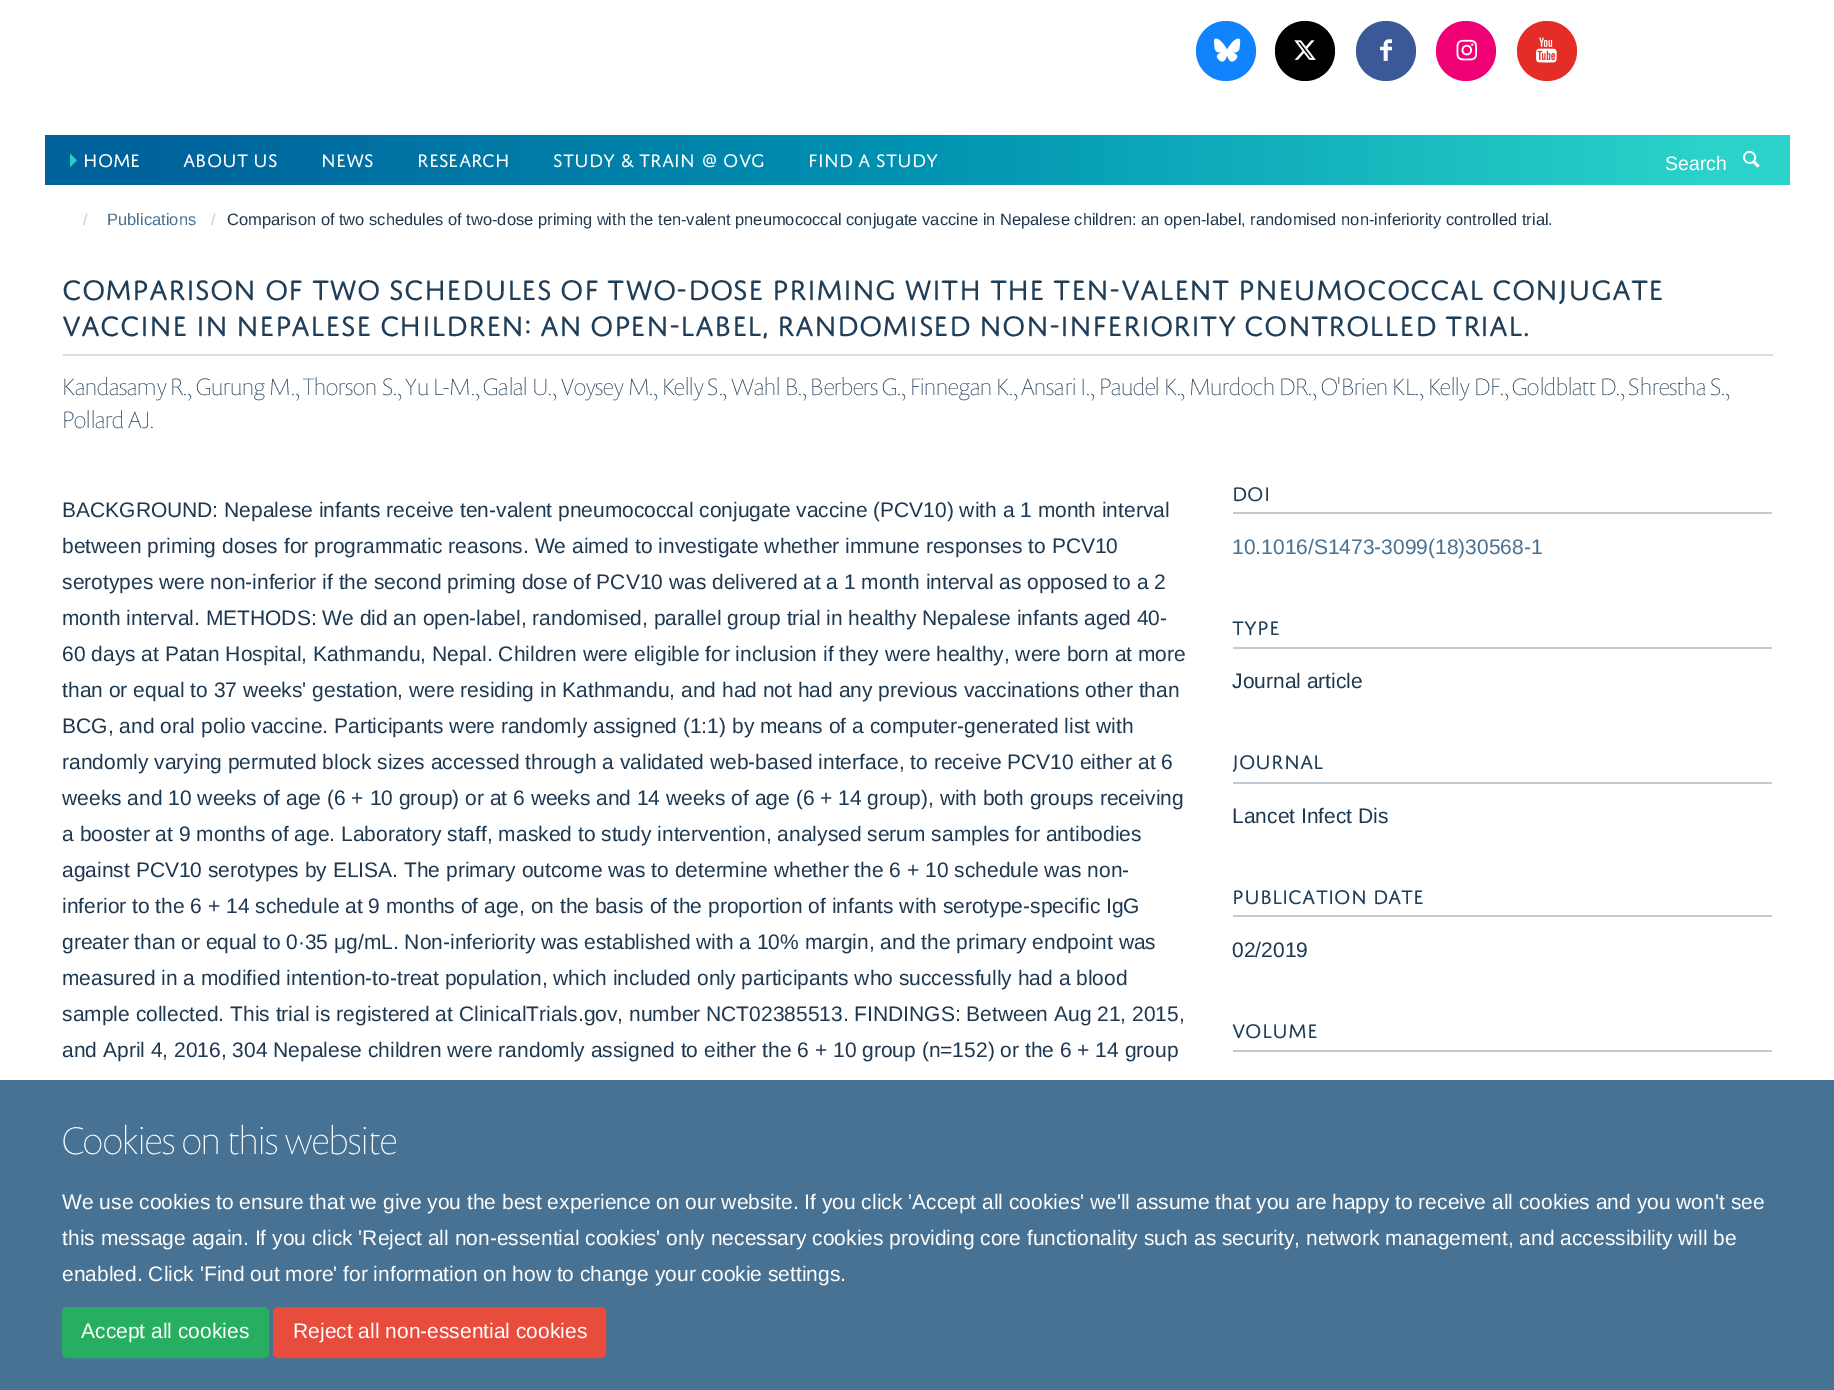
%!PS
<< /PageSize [1834 1390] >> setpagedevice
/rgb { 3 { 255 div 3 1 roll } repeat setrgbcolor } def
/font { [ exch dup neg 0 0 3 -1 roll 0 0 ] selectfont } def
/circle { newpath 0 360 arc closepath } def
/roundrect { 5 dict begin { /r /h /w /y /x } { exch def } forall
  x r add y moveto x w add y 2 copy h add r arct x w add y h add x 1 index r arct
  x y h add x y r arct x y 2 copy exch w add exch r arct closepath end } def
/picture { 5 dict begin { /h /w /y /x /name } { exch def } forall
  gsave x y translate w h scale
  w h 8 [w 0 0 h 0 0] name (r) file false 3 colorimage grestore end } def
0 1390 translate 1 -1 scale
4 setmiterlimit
255 255 255 rgb
0 0 1834 1390 rectfill
17 131 252 rgb
1226 51 30 circle fill
(img/1.rgb) 1214 38 27 24 picture
0 0 0 rgb
1305 51 30 circle fill
(img/2.rgb) 1294 40 22 20 picture
59 89 152 rgb
1386 51 30 circle fill
(img/3.rgb) 1380 39 12 22 picture
239 0 116 rgb
1466 51 30 circle fill
(img/4.rgb) 1456 39 22 22 picture
229 45 39 rgb
1547 51 30 circle fill
(img/5.rgb) 1536 37 21 26 picture
gsave 45 135 1745 50 3 roundrect clip newpath
<< /ShadingType 2 /ColorSpace /DeviceRGB /Coords [45 160 1790 160] /Extend [true true] /Function << /FunctionType 3 /Domain [0 1] /Functions [<< /FunctionType 2 /Domain [0 1] /C0 [0 0.384 0.608] /C1 [0 0.384 0.608] /N 1 >> << /FunctionType 2 /Domain [0 1] /C0 [0 0.384 0.608] /C1 [0 0.576 0.698] /N 1 >> << /FunctionType 2 /Domain [0 1] /C0 [0 0.576 0.698] /C1 [0.165 0.824 0.788] /N 1 >> << /FunctionType 2 /Domain [0 1] /C0 [0.165 0.824 0.788] /C1 [0.165 0.824 0.788] /N 1 >>] /Bounds [0.05 0.5 0.95] /Encode [0 1 0 1 0 1 0 1] >> >> shfill grestore
(img/6.rgb) 1743 150 17 18 picture
[
  [63 354 1710 2 221 221 221]
  [1233 512 539 2 198 202 207]
  [1233 647 539 2 198 202 207]
  [1233 782 539 2 198 202 207]
  [1233 915 539 2 198 202 207]
  [1233 1050 539 2 198 202 207]
  [0 1080 1834 310 72 114 148]
] { aload pop rgb rectfill } forall
39 174 96 rgb
63 1308 205 49 4 roundrect gsave fill grestore
2 setlinewidth
stroke
231 76 60 rgb
274 1308 331 49 4 roundrect gsave fill grestore
stroke
/FreeSans-Regular 19.5 font
39 206 199 rgb
68 167 moveto (⏵) show
/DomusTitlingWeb-Regular 19.5 font
255 255 255 rgb
[
  [(HOME) 83 167]
  [(ABOUT US) 183 167]
  [(NEWS) 321 167]
  [(RESEARCH) 417 167]
  [(STUDY & TRAIN @ OVG) 553 167]
  [(FIND A STUDY) 808 167]
] { aload pop moveto show } forall
/LiberationSans-Regular 19.5 font
1665 170 moveto (Search) show
/LiberationSans-Regular 16.5 font
204 204 204 rgb
83 225 moveto (/) show
72 114 148 rgb
107 225 moveto (Publications) show
204 204 204 rgb
211 225 moveto (/) show
29 56 80 rgb
227 225 moveto (Comparison of two schedules of two-dose priming with the ten-valent pneumococcal conjugate vaccine in Nepalese children: an open-label, randomised non-inferiority controlled trial.) show
/DomusTitlingWeb-Regular 30 font
32 62 88 rgb
62 300 moveto (COMPARISON OF TWO SCHEDULES OF TWO-DOSE PRIMING WITH THE TEN-VALENT PNEUMOCOCCAL CONJUGATE) show
62 336 moveto -0.1 0 32 (VACCINE IN NEPALESE CHILDREN: AN OPEN-LABEL, RANDOMISED NON-INFERIORITY CONTROLLED TRIAL.) widthshow
/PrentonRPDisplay-Thin 24 font
62 395 moveto (Kandasamy R., Gurung M., Thorson S., Yu L-M., Galal U., Voysey M., Kelly S., Wahl B., Berbers G., Finnegan K., Ansari I., Paudel K., Murdoch DR., O'Brien KL., Kelly DF., Goldblatt D., Shrestha S.,) show
62 428 moveto (Pollard AJ.) show
/LiberationSans-Regular 21 font
29 56 80 rgb
[
  [(BACKGROUND: Nepalese infants receive ten-valent pneumococcal conjugate vaccine \(PCV10\) with a 1 month interval) 62 517]
  [(between priming doses for programmatic reasons. We aimed to investigate whether immune responses to PCV10) 62 553]
  [(serotypes were non-inferior if the second priming dose of PCV10 was delivered at a 1 month interval as opposed to a 2) 62 589]
  [(month interval. METHODS: We did an open-label, randomised, parallel group trial in healthy Nepalese infants aged 40-) 62 625]
  [(60 days at Patan Hospital, Kathmandu, Nepal. Children were eligible for inclusion if they were healthy, were born at more) 62 661]
  [(than or equal to 37 weeks' gestation, were residing in Kathmandu, and had not had any previous vaccinations other than) 62 697]
  [(BCG, and oral polio vaccine. Participants were randomly assigned \(1:1\) by means of a computer-generated list with) 62 733]
  [(randomly varying permuted block sizes accessed through a validated web-based interface, to receive PCV10 either at 6) 62 769]
  [(weeks and 10 weeks of age \(6 + 10 group\) or at 6 weeks and 14 weeks of age \(6 + 14 group\), with both groups receiving) 62 805]
  [(a booster at 9 months of age. Laboratory staff, masked to study intervention, analysed serum samples for antibodies) 62 841]
  [(against PCV10 serotypes by ELISA. The primary outcome was to determine whether the 6 + 10 schedule was non-) 62 877]
  [(inferior to the 6 + 14 schedule at 9 months of age, on the basis of the proportion of infants with serotype-specific IgG) 62 913]
  [(greater than or equal to 0·35 μg/mL. Non-inferiority was established with a 10% margin, and the primary endpoint was) 62 949]
  [(measured in a modified intention-to-treat population, which included only participants who successfully had a blood) 62 985]
  [(sample collected. This trial is registered at ClinicalTrials.gov, number NCT02385513. FINDINGS: Between Aug 21, 2015,) 62 1021]
  [(and April 4, 2016, 304 Nepalese children were randomly assigned to either the 6 + 10 group \(n=152\) or the 6 + 14 group) 62 1057]
] { aload pop moveto show } forall
/DomusTitlingWeb-Regular 21 font
32 62 88 rgb
1232 501 moveto (DOI) show
/LiberationSans-Regular 21 font
72 114 148 rgb
1232 554 moveto (10.1016/S1473-3099\(18\)30568-1) show
/DomusTitlingWeb-Regular 21 font
32 62 88 rgb
1232 635 moveto (TYPE) show
/LiberationSans-Regular 21 font
29 56 80 rgb
1232 688 moveto (Journal article) show
/DomusTitlingWeb-Regular 21 font
32 62 88 rgb
1232 769 moveto (JOURNAL) show
/LiberationSans-Regular 21 font
29 56 80 rgb
1232 823 moveto (Lancet Infect Dis) show
/DomusTitlingWeb-Regular 21 font
32 62 88 rgb
1232 904 moveto (PUBLICATION DATE) show
/LiberationSans-Regular 21 font
29 56 80 rgb
1232 957 moveto (02/2019) show
/DomusTitlingWeb-Regular 21 font
32 62 88 rgb
1232 1038 moveto (VOLUME) show
/PrentonRPDisplay-Thin 39 font
255 255 255 rgb
62 1154 moveto (Cookies on this website) show
/LiberationSans-Regular 21 font
[
  [(We use cookies to ensure that we give you the best experience on our website. If you click 'Accept all cookies' we'll assume that you are happy to receive all cookies and you won't see) 62 1209]
  [(this message again. If you click 'Reject all non-essential cookies' only necessary cookies providing core functionality such as security, network management, and accessibility will be) 62 1245]
  [(enabled. Click 'Find out more' for information on how to change your cookie settings.) 62 1281]
  [(Accept all cookies) 81 1338]
  [(Reject all non-essential cookies) 293 1338]
] { aload pop moveto show } forall
showpage
